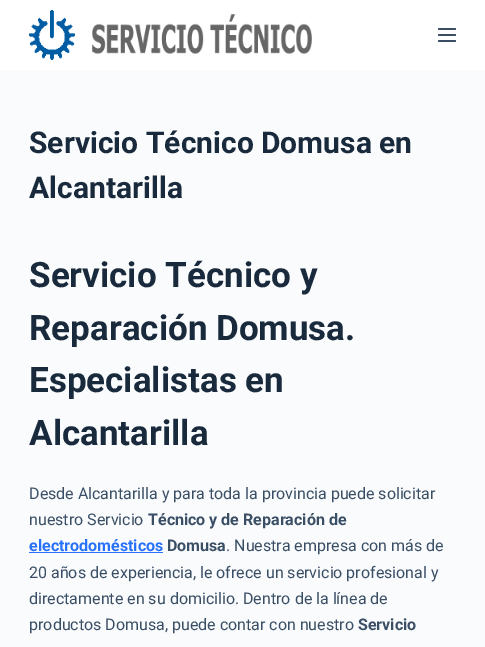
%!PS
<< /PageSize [485 647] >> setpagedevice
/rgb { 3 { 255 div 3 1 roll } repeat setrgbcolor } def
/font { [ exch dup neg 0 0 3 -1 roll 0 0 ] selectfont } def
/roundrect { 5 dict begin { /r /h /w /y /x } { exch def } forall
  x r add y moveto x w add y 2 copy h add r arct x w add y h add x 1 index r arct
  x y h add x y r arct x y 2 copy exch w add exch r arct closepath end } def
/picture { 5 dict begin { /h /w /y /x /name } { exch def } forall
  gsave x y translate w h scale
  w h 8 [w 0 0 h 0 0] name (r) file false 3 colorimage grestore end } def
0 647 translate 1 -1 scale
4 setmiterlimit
250 251 252 rgb
0 0 485 647 rectfill
255 255 255 rgb
0 0 485 70 rectfill
(img/1.rgb) 29 10 283 50 picture
58 79 102 rgb
438 28 18 2 1 roundrect fill
438 34 18 2 1 roundrect fill
438 40 18 2 1 roundrect fill
40 114 250 rgb
29 552 134 1 rectfill
/Roboto-Bold 30 font
25 42 61 rgb
29 153 moveto (Servicio Técnico Domusa en) show
29 198 moveto (Alcantarilla) show
/Roboto-Bold 35 font
[
  [(Servicio Técnico y) 29 287]
  [(Reparación Domusa.) 29 340]
  [(Especialistas en) 29 392]
  [(Alcantarilla) 29 445]
] { aload pop moveto show } forall
/Roboto-Regular 16 font
58 79 102 rgb
29 499 moveto (Desde Alcantarilla y para toda la provincia puede solicitar) show
29 525 moveto (nuestro Servicio) show
/Roboto-Bold 16 font
148 525 moveto (Técnico y de Reparación de) show
40 114 250 rgb
29 551 moveto (electrodomésticos) show
58 79 102 rgb
167 551 moveto (Domusa) show
/Roboto-Regular 16 font
[
  [(. Nuestra empresa con más de) 226 551]
  [(20 años de experiencia, le ofrece un servicio profesional y) 29 578]
  [(directamente en su domicilio. Dentro de la línea de) 29 604]
  [(productos Domusa, puede contar con nuestro) 29 630]
] { aload pop moveto show } forall
/Roboto-Bold 16 font
358 630 moveto (Servicio) show
showpage
